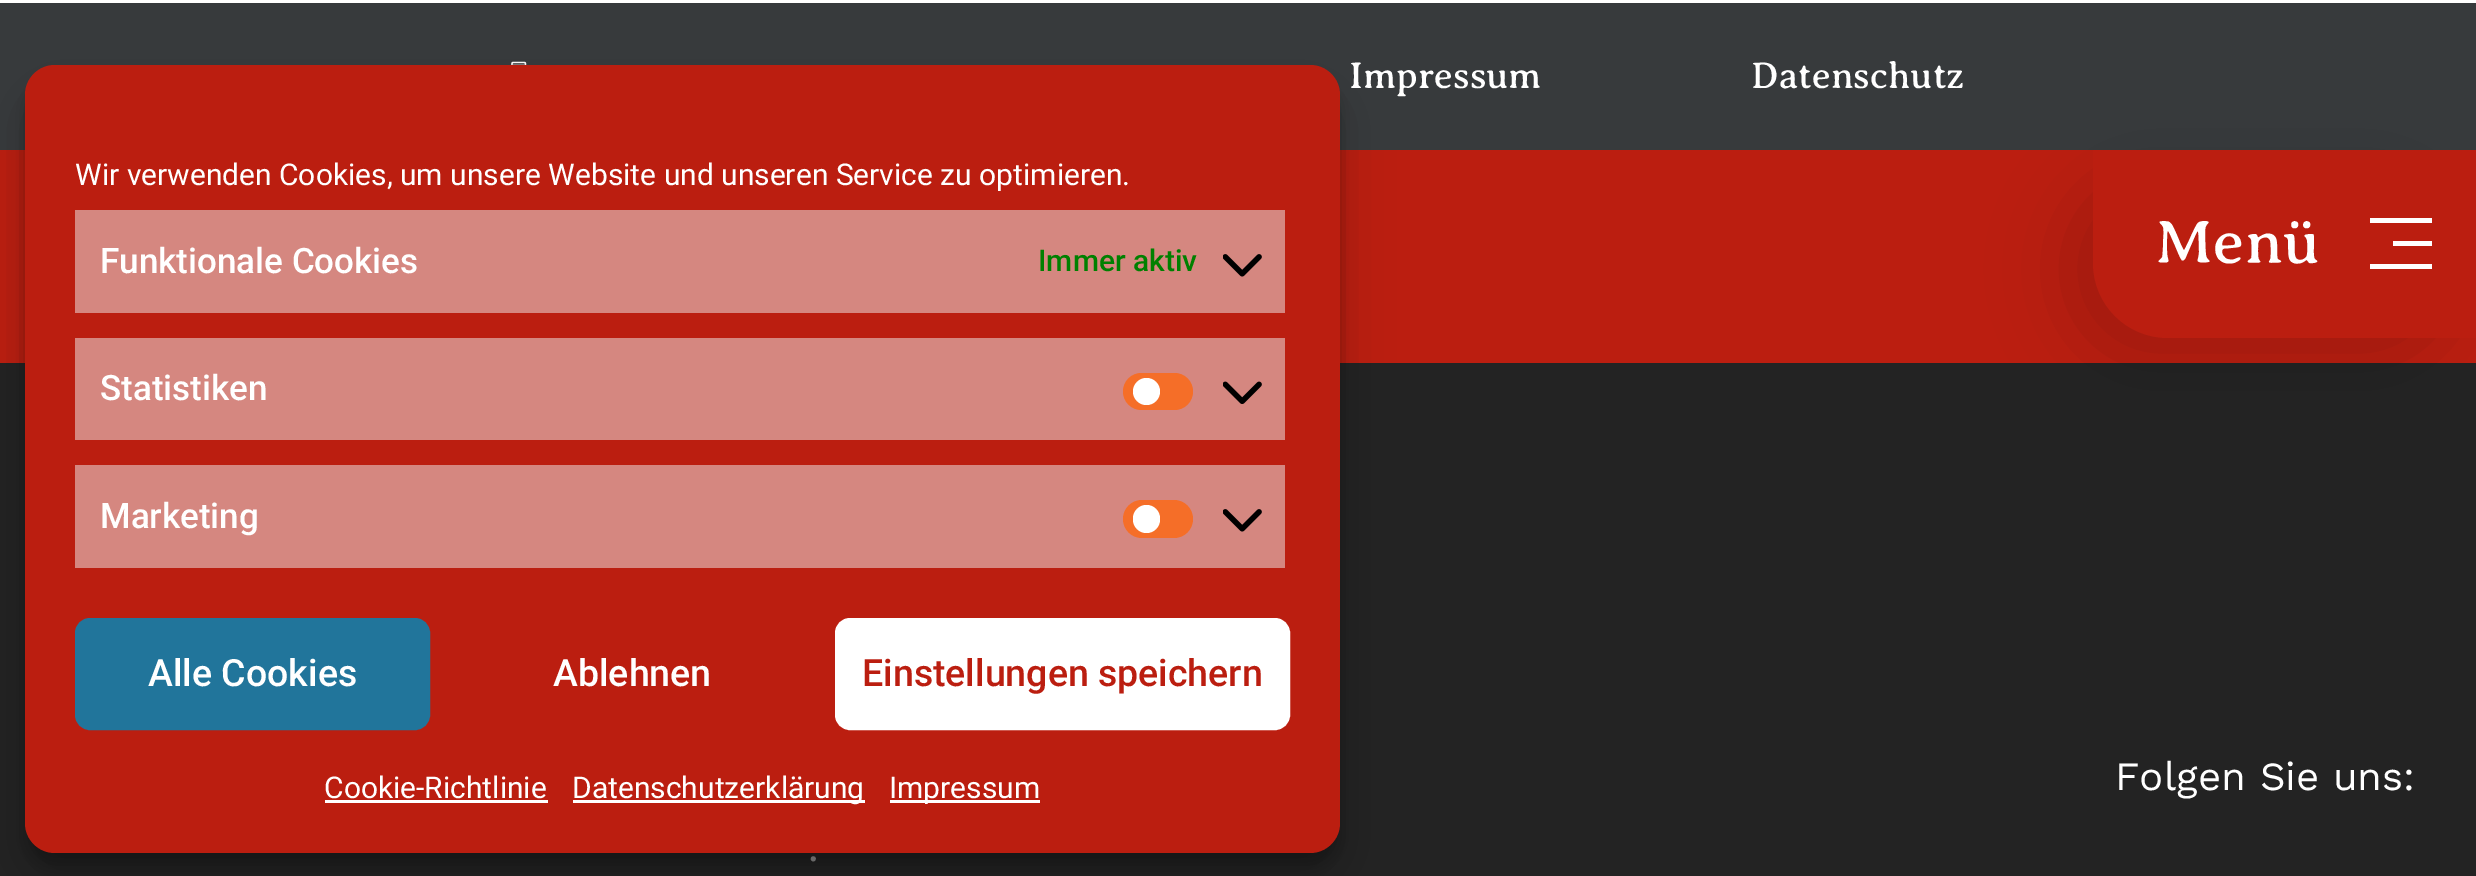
%!PS
<< /PageSize [2476 876] /PageUsesTransparency true >> setpagedevice
/rgb { 3 { 255 div 3 1 roll } repeat setrgbcolor } def
/font { [ exch dup neg 0 0 3 -1 roll 0 0 ] selectfont } def
/alpha { dup .setfillconstantalpha .setstrokeconstantalpha } def
/circle { newpath 0 360 arc closepath } def
/roundrect { 5 dict begin { /r /h /w /y /x } { exch def } forall
  x r add y moveto x w add y 2 copy h add r arct x w add y h add x 1 index r arct
  x y h add x y r arct x y 2 copy exch w add exch r arct closepath end } def
/shadow { 12 dict begin { /a /b /q /h /w /y /x } { exch def } forall gsave /was 0 def
  9 -2 -9 { dup b mul 4 div /e exch def 1 sub .425 mul 2.718 exch exp 1 add a .99 .min exch div /now exch def
    1 1 now sub 1 was sub div sub alpha /was now def
    w h .min e 2 mul add 0 gt { x e sub y e sub w e 2 mul add h e 2 mul add
      q e add b .6 mul add w h .min 2 div e add .min 0 .max roundrect fill } if } for grestore end } def
/picture { 5 dict begin { /h /w /y /x /name } { exch def } forall
  gsave x y translate w h scale
  w h 8 [w 0 0 h 0 0] name (r) file false 3 colorimage grestore end } def
0 .pushpdf14devicefilter
0 876 translate 1 -1 scale
4 setmiterlimit
255 255 255 rgb
0 0 2476 876 rectfill
55 58 60 rgb
0 3 2476 147 rectfill
(img/3.rgb) 511 61 16 4 picture
187 30 16 rgb
0 150 2476 213 rectfill
35 35 35 rgb
0 363 2476 513 rectfill
0 0 0 rgb
25 80 1315 788 30 7.5 0.23 shadow
25 90 1315 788 30 25 0.19 shadow
187 30 16 rgb
25 65 1315 788 30 roundrect fill
213 135 128 rgb
75 210 1210 103 rectfill
(img/1.rgb) 1223 254 39 23 picture
75 338 1210 102 rectfill
245 110 40 rgb
1123 373 70 37 18.5 roundrect fill
255 255 255 rgb
1146.5 391.5 13.5 circle fill
(img/2.rgb) 1223 381 39 23 picture
213 135 128 rgb
75 465 1210 103 rectfill
245 110 40 rgb
1123 500 70 38 19 roundrect fill
255 255 255 rgb
1133 505 27 28 13.5 roundrect fill
(img/1.rgb) 1223 509 39 23 picture
33 117 155 rgb
76.5 619.5 352 109 13.5 roundrect gsave fill grestore
3 setlinewidth
stroke
255 255 255 rgb
836.5 619.5 452 109 13.5 roundrect gsave fill grestore
stroke
[
  [325 800 223 3 255 255 255]
  [573 800 292 3 255 255 255]
  [890 800 150 3 255 255 255]
] { aload pop rgb rectfill } forall
0 0 0 rgb
2068 175 385 188 75 37.5 0.15 shadow
187 30 16 rgb
2093 150 moveto 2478 150 lineto 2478 338 lineto 2168 338 lineto 2126.5 338 2093 304.5 2093 263 curveto closepath fill
[
  [2370 218 62 5 255 255 255]
  [2370 264 62 5 255 255 255]
  [2393 241 39 5 255 255 255]
] { aload pop rgb rectfill } forall
/Roboto-Regular 30 font
75 185 moveto (Wir verwenden Cookies, um unsere Website und unseren Service zu optimieren.) show
/Roboto-Medium 35 font
100 273 moveto (Funktionale Cookies) show
/Roboto-Medium 30 font
0 128 0 rgb
1038 271 moveto (Immer aktiv) show
/Roboto-Medium 35 font
255 255 255 rgb
100 400 moveto (Statistiken) show
100 528 moveto (Marketing) show
/Roboto-Medium 37.5 font
148 686 moveto (Alle Cookies) show
553 686 moveto (Ablehnen) show
187 30 16 rgb
862 686 moveto (Einstellungen speichern) show
/Roboto-Regular 30 font
255 255 255 rgb
[
  [(Cookie-Richtlinie) 324 798]
  [(Datenschutzerklärung) 572 798]
  [(Impressum) 889 798]
] { aload pop moveto show } forall
/AveriaSerifLibre-Regular 37.5 font
1349 88 moveto (Impressum) show
1751 88 moveto (Datenschutz) show
/AveriaSerifLibre-Regular 62.5 font
2155 263 moveto (Menü) show
/WorkSans-Regular 40 font
2115 790 moveto (Folgen Sie uns:) show
104 104 104 rgb
808 861 moveto (.) show
.poppdf14devicefilter showpage
